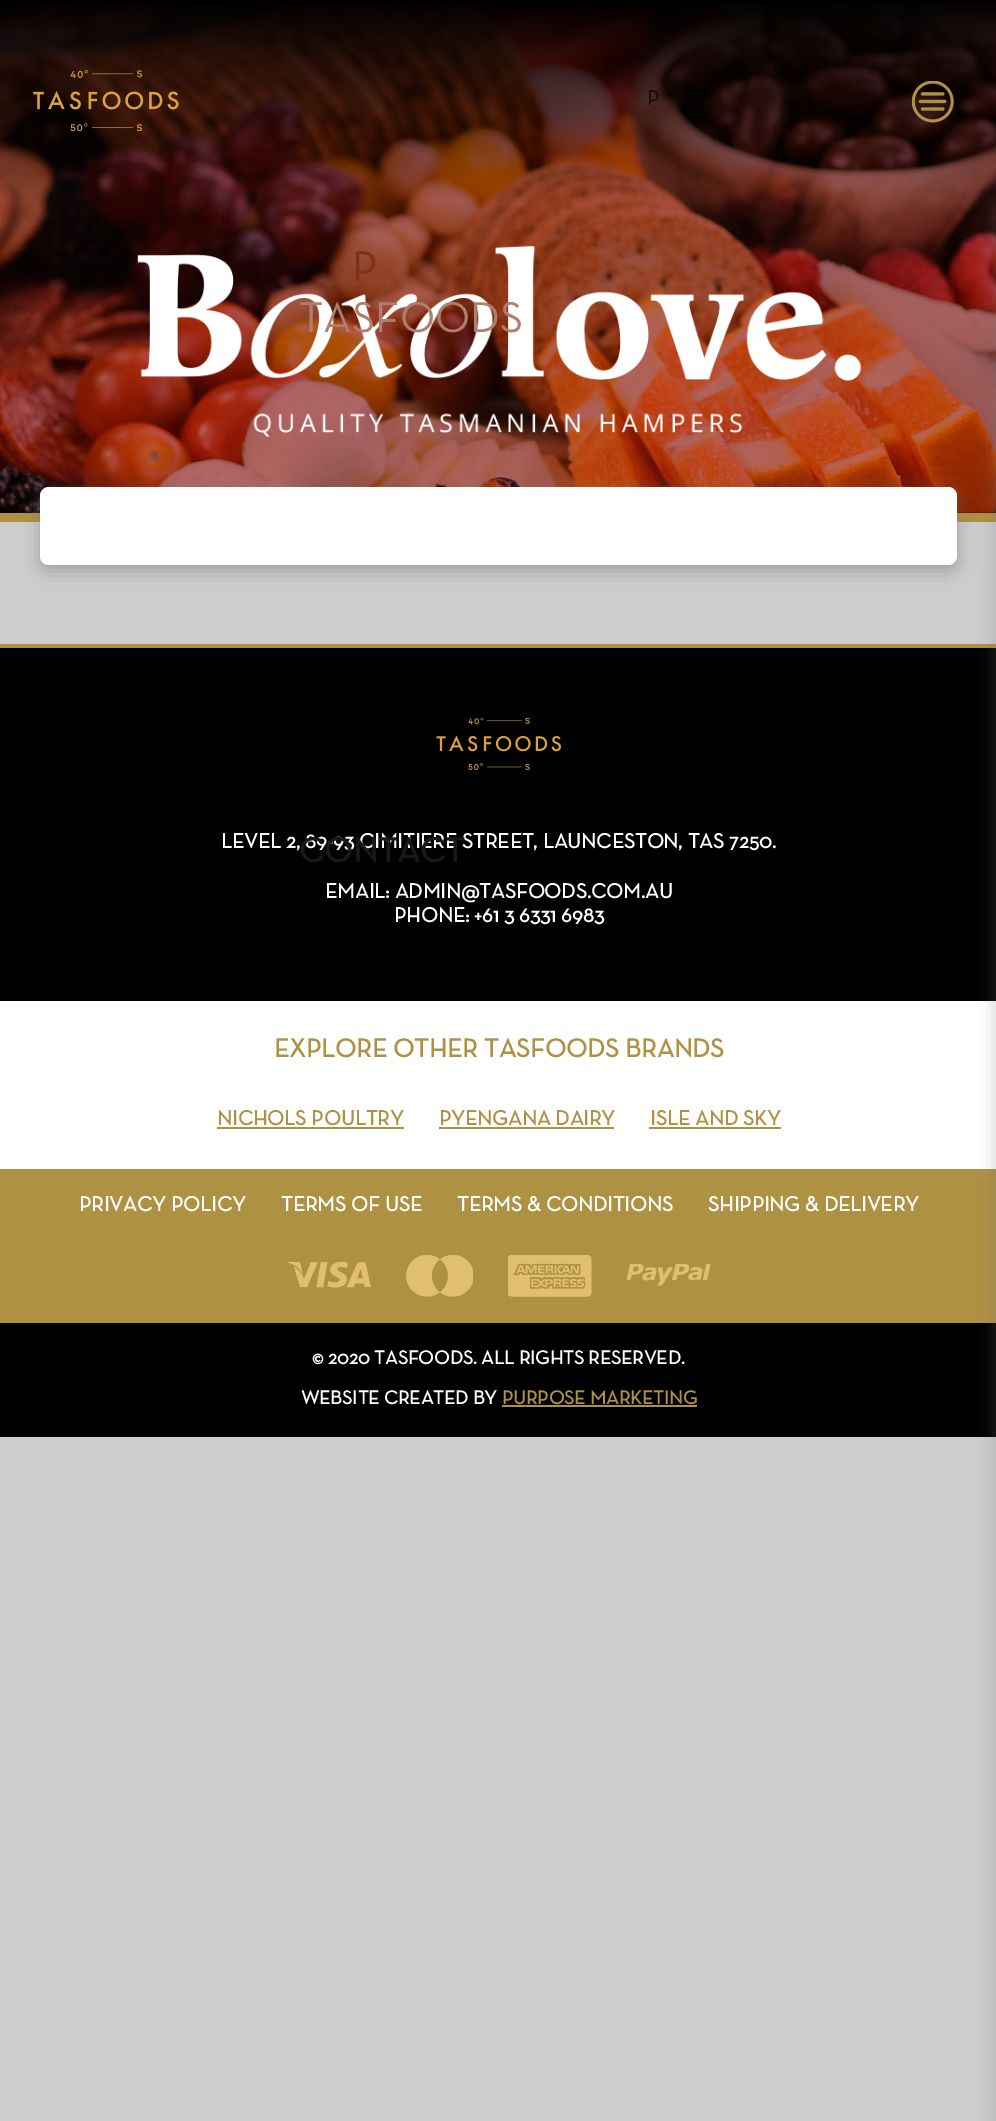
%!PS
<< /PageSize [996 2121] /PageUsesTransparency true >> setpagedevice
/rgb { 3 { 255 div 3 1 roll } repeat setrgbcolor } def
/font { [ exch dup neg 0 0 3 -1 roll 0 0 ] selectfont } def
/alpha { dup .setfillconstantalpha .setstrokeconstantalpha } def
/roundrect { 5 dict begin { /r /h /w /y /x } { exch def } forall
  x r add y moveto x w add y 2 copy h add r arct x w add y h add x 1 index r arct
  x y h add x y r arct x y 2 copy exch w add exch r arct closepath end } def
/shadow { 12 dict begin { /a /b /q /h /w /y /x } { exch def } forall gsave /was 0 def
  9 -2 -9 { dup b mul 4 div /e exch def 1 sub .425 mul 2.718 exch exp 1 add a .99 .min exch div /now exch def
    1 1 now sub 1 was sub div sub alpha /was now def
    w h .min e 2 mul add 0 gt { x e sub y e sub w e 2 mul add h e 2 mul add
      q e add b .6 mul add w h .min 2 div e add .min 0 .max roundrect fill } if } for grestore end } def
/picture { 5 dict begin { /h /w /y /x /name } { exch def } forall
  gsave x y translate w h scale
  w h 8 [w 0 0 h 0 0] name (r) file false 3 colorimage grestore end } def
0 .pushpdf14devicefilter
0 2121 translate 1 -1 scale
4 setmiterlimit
205 205 205 rgb
0 0 996 2121 rectfill
174 145 66 rgb
0 513 996 9 rectfill
(img/1.rgb) 0 0 996 513 picture
(img/2.rgb) 137 245 725 192 picture
112 112 112 rgb
40 492 917 79 9 9 0.5 shadow
255 255 255 rgb
40 487 917 78 9 roundrect fill
(img/3.rgb) 33 70 146 61 picture
(img/4.rgb) 912 81 42 42 picture
[
  [0 648 996 353 0 0 0]
  [0 644 996 4 174 145 66]
  [0 1001 996 168 255 255 255]
  [0 1169 996 154 174 145 66]
  [0 1323 996 114 0 0 0]
] { aload pop rgb rectfill } forall
112 112 112 rgb
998 208 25 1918 0 9 0.5 shadow
(img/5.rgb) 436 718 125 52 picture
[
  [217 1127 187 2 174 145 66]
  [439 1127 175 2 174 145 66]
  [649 1127 132 2 174 145 66]
] { aload pop rgb rectfill } forall
(img/6.rgb) 287 1262 84 26 picture
(img/7.rgb) 406 1255 67 42 picture
(img/8.rgb) 508 1255 84 42 picture
(img/9.rgb) 627 1264 84 22 picture
502 1405 195 2 rectfill
/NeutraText-Bold 21 font
30 14 11 rgb
647 105 moveto (P) show
/NeutraText-Regular 43.75 font
120 50 29 rgb
352 281 moveto (P) show
175 126 110 rgb
299 332 moveto (TASFOODS) show
/NeutraText-Bold 21 font
255 255 255 rgb
221 848 moveto (LEVEL 2, 89-93 CIMITIERE STREET, LAUNCESTON, TAS 7250.) show
/NeutraText-Bold 35 font
25 25 25 rgb
299 862 moveto (CONTACT) show
/NeutraText-Bold 21 font
255 255 255 rgb
325 898 moveto (EMAIL: ADMIN@TASFOODS.COM.AU) show
394 922 moveto (PHONE: +61 3 6331 6983) show
/NeutraText-Bold 26.25 font
174 145 66 rgb
274 1057 moveto (EXPLORE OTHER TASFOODS BRANDS) show
/NeutraText-Bold 21 font
[
  [(NICHOLS POULTRY) 217 1125]
  [(PYENGANA DAIRY) 439 1125]
  [(ISLE AND SKY) 650 1125]
] { aload pop moveto show } forall
255 255 255 rgb
[
  [(PRIVACY POLICY) 79 1211]
  [(TERMS OF USE) 281 1211]
  [(TERMS & CONDITIONS) 457 1211]
  [(SHIPPING & DELIVERY) 708 1211]
] { aload pop moveto show } forall
/NeutraText-Bold 19.25 font
312 1364 moveto (© 2020 TASFOODS. ALL RIGHTS RESERVED.) show
301 1404 moveto (WEBSITE CREATED BY) show
174 145 66 rgb
502 1404 moveto (PURPOSE MARKETING) show
.poppdf14devicefilter showpage
